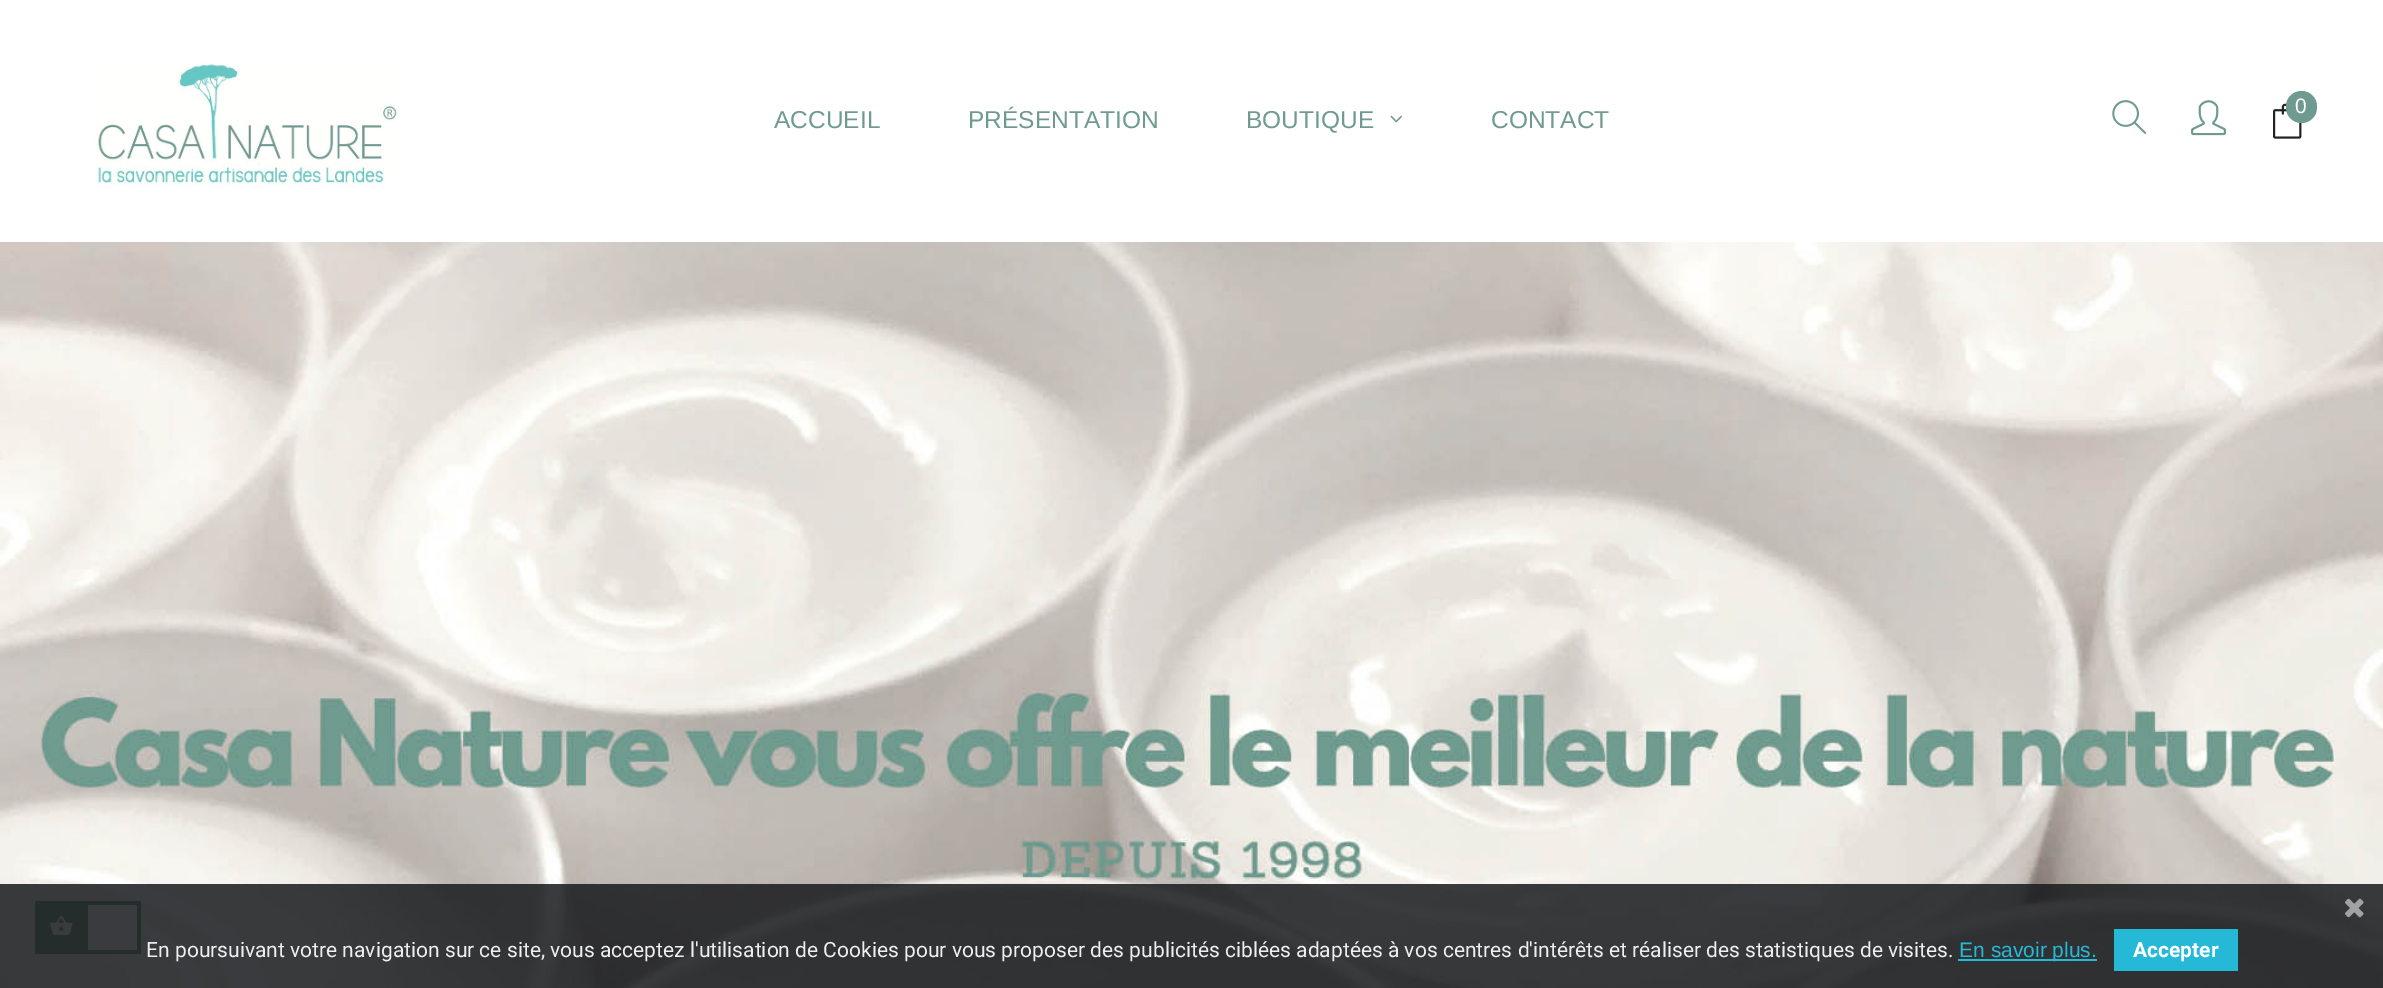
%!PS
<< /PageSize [2383 988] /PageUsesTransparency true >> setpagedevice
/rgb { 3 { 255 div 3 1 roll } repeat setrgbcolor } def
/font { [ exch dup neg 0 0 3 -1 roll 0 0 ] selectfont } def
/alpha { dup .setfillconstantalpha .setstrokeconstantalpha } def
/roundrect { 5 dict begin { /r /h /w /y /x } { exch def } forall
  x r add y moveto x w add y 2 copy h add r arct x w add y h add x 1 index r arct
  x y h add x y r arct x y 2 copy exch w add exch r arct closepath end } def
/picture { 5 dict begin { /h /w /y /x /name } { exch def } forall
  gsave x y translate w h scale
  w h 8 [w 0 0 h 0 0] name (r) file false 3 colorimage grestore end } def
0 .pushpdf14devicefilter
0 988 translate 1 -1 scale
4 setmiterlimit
255 255 255 rgb
0 0 2383 988 rectfill
(img/1.rgb) 94 63 305 124 picture
(img/2.rgb) 1390 115 12 8 picture
(img/3.rgb) 2112 100 35 35 picture
(img/4.rgb) 2191 100 35 36 picture
(img/5.rgb) 2273 103 29 36 picture
111 154 143 rgb
2286 91 31 32 15.5 roundrect fill
(img/6.rgb) 0 242 2383 746 picture
111 154 135 rgb
35 901 53 53 rectfill
(img/7.rgb) 50 915 23 20 picture
[
  [88 905 49 45 255 255 255]
  [88 901 52 4 111 154 135]
  [137 901 4 53 111 154 135]
  [88 950 52 4 111 154 135]
] { aload pop rgb rectfill } forall
0.85 alpha
[
  [0 884 2383 104 23 25 28]
] { aload pop rgb rectfill } forall
1 alpha
(img/8.rgb) 2345 898 19 20 picture
37 185 215 rgb
1958 959 139 2 rectfill
2114 929 124 42 rectfill
/LiberationSans-Regular 24.5 font
111 154 143 rgb
[
  [(ACCUEIL) 774 128]
  [(PRÉSENTATION) 968 128]
  [(BOUTIQUE) 1246 128]
  [(CONTACT) 1491 128]
] { aload pop moveto show } forall
/LiberationSans-Regular 21 font
255 255 255 rgb
2295 113 moveto (0) show
/Roboto-Regular 21 font
239 239 239 rgb
146 957 moveto (En poursuivant votre navigation sur ce site, vous acceptez l'utilisation de Cookies pour vous proposer des publicités ciblées adaptées à vos centres d'intérêts et réaliser des statistiques de visites.) show
/LiberationSans-Regular 21 font
37 185 215 rgb
1959 957 moveto (En savoir plus.) show
/Roboto-Bold 21 font
255 255 255 rgb
2133 957 moveto (Accepter) show
.poppdf14devicefilter showpage
